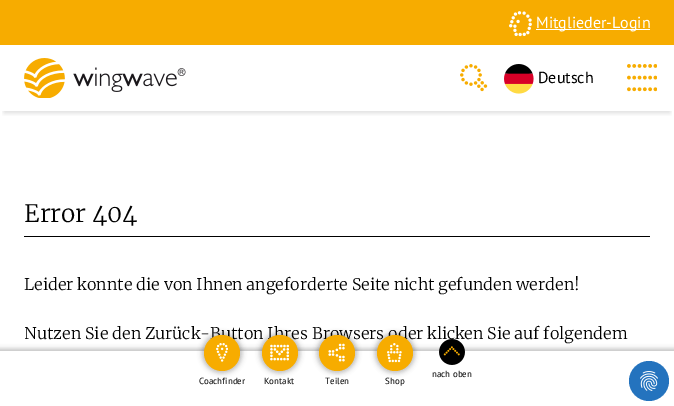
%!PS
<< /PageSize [674 406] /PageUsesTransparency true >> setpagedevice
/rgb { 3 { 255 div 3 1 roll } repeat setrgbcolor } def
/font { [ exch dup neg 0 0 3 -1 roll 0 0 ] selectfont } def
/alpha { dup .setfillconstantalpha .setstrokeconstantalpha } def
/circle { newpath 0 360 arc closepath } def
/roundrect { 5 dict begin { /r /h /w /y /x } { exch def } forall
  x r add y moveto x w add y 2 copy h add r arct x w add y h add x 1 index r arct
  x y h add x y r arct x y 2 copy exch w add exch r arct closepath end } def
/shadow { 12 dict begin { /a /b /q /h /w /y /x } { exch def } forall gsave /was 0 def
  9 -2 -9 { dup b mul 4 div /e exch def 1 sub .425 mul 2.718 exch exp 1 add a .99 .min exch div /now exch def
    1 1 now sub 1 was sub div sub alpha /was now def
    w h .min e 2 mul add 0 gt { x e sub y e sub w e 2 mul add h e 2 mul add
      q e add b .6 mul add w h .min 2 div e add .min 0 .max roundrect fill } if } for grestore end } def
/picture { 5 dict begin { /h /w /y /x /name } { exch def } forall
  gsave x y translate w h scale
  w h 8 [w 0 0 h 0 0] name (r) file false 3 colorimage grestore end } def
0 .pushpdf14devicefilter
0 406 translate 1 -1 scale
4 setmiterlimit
255 255 255 rgb
0 0 674 406 rectfill
247 172 0 rgb
0 0 674 45 rectfill
(img/1.rgb) 509 11 23 26 picture
255 255 255 rgb
536 29 114 1 rectfill
gsave
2 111 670 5 rectclip
0 0 0 rgb
4 55 666 58 0 2.5 0.13 shadow
grestore
(img/2.rgb) 24 58 162 40 picture
(img/3.rgb) 460 64 28 28 picture
(img/4.rgb) 504 64 30 30 picture
(img/5.rgb) 627 64 30 28 picture
0 0 0 rgb
24 236 626 1 rectfill
-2 349 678 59 0 2.5 0.25 shadow
255 255 255 rgb
0 351 674 55 rectfill
0 0 0 rgb
202 333 40 40 20 2.5 0.25 shadow
260 333 40 40 20 2.5 0.25 shadow
317 333 40 40 20 2.5 0.25 shadow
375 333 40 40 20 2.5 0.25 shadow
36 115 190 rgb
649 381 20 circle fill
(img/11.rgb) 640 371 18 20 picture
/PTSans-Regular 16 font
255 255 255 rgb
536 28 moveto (Mitglieder-Login) show
0 0 0 rgb
538 83 moveto (Deutsch) show
/Merriweather-Light 24 font
24 222 moveto (Error 404) show
/Merriweather-Light 16 font
24 290 moveto (Leider konnte die von Ihnen angeforderte Seite nicht gefunden werden!) show
24 339 moveto (Nutzen Sie den Zurück-Button Ihres Browsers oder klicken Sie auf folgendem) show
(img/6.rgb) 439 339 26 26 picture
/PTSans-Regular 9 font
432 377 moveto (nach oben) show
247 172 0 rgb
222 353 18 circle fill
(img/7.rgb) 216 343 12 19 picture
0 0 0 rgb
199 384 moveto (Coachfinder) show
247 172 0 rgb
280 353 18 circle fill
(img/8.rgb) 270 344 19 17 picture
0 0 0 rgb
264 384 moveto (Kontakt) show
247 172 0 rgb
337 353 18 circle fill
(img/9.rgb) 328 343 17 19 picture
0 0 0 rgb
325 384 moveto (Teilen) show
247 172 0 rgb
395 353 18 circle fill
(img/10.rgb) 387 343 15 20 picture
0 0 0 rgb
385 384 moveto (Shop) show
.poppdf14devicefilter showpage
